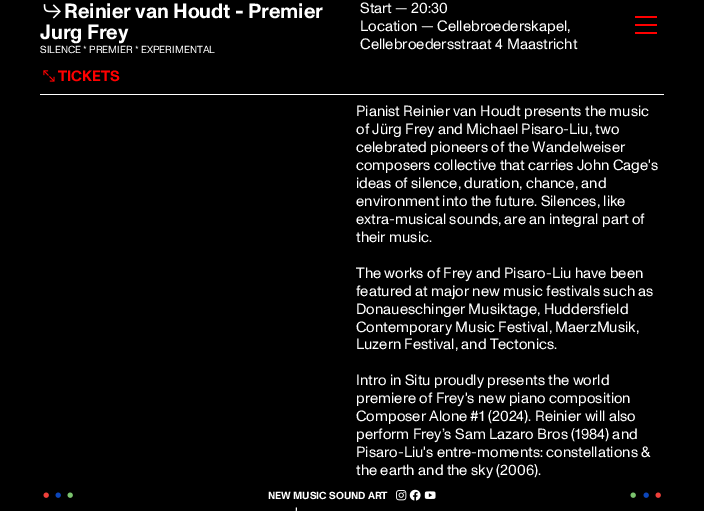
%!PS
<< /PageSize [704 511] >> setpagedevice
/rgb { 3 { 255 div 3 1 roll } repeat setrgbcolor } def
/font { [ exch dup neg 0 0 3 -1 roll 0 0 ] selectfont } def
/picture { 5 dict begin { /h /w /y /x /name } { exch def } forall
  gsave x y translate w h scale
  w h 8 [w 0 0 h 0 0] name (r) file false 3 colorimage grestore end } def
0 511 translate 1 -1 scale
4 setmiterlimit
0 0 0 rgb
0 0 704 511 rectfill
(img/1.rgb) 43 4 18 15 picture
(img/2.rgb) 43 70 12 12 picture
[
  [40 94 624 1 255 255 255]
  [635 16 22 2 255 0 0]
  [635 24 22 2 255 0 0]
  [635 32 22 2 255 0 0]
] { aload pop rgb rectfill } forall
(img/3.rgb) 396 490 11 11 picture
(img/4.rgb) 409 489 12 12 picture
(img/5.rgb) 424 491 12 8 picture
(img/6.rgb) 43 492 6 6 picture
(img/7.rgb) 55 492 6 6 picture
(img/8.rgb) 67 492 6 6 picture
(img/8.rgb) 630 492 6 6 picture
(img/7.rgb) 643 492 6 6 picture
(img/6.rgb) 655 492 6 6 picture
/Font-Bold 20.6 font
255 255 255 rgb
64 18 moveto (Reinier van Houdt - Premier) show
40 39 moveto (Jurg Frey) show
/Font-Regular 10.25 font
40 53 moveto (SILENCE * PREMIER * EXPERIMENTAL) show
/Font-Bold 14.9 font
255 0 0 rgb
58 81 moveto (TICKETS) show
/Font-Regular 14.9 font
255 255 255 rgb
360 13 moveto (Start — 20:30) show
/Font-Regular 15 font
360 31 moveto (Location — Cellebroederskapel,) show
360 49 moveto (Cellebroedersstraat 4 Maastricht) show
/Font-Regular 14.9 font
[
  [(Pianist Reinier van Houdt presents the music) 356 116]
  [(of Jürg Frey and Michael Pisaro-Liu, two) 356 134]
  [(celebrated pioneers of the Wandelweiser) 356 152]
  [(composers collective that carries John Cage's) 356 170]
  [(ideas of silence, duration, chance, and) 356 188]
  [(environment into the future. Silences, like) 356 206]
  [(extra-musical sounds, are an integral part of) 356 224]
  [(their music.) 356 242]
  [(The works of Frey and Pisaro-Liu have been) 356 278]
  [(featured at major new music festivals such as) 356 296]
  [(Donaueschinger Musiktage, Huddersfield) 356 314]
  [(Contemporary Music Festival, MaerzMusik,) 356 332]
  [(Luzern Festival, and Tectonics.) 356 349]
  [(Intro in Situ proudly presents the world) 356 385]
  [(premiere of Frey's new piano composition) 356 403]
  [(Composer Alone #1 \(2024\). Reinier will also) 356 421]
  [(perform Frey’s Sam Lazaro Bros \(1984\) and) 356 439]
  [(Pisaro-Liu's entre-moments: constellations &) 356 457]
  [(the earth and the sky \(2006\).) 356 475]
  [(') 295 518]
] { aload pop moveto show } forall
/Font-Bold 10.25 font
268 499 moveto (NEW MUSIC SOUND ART) show
showpage
